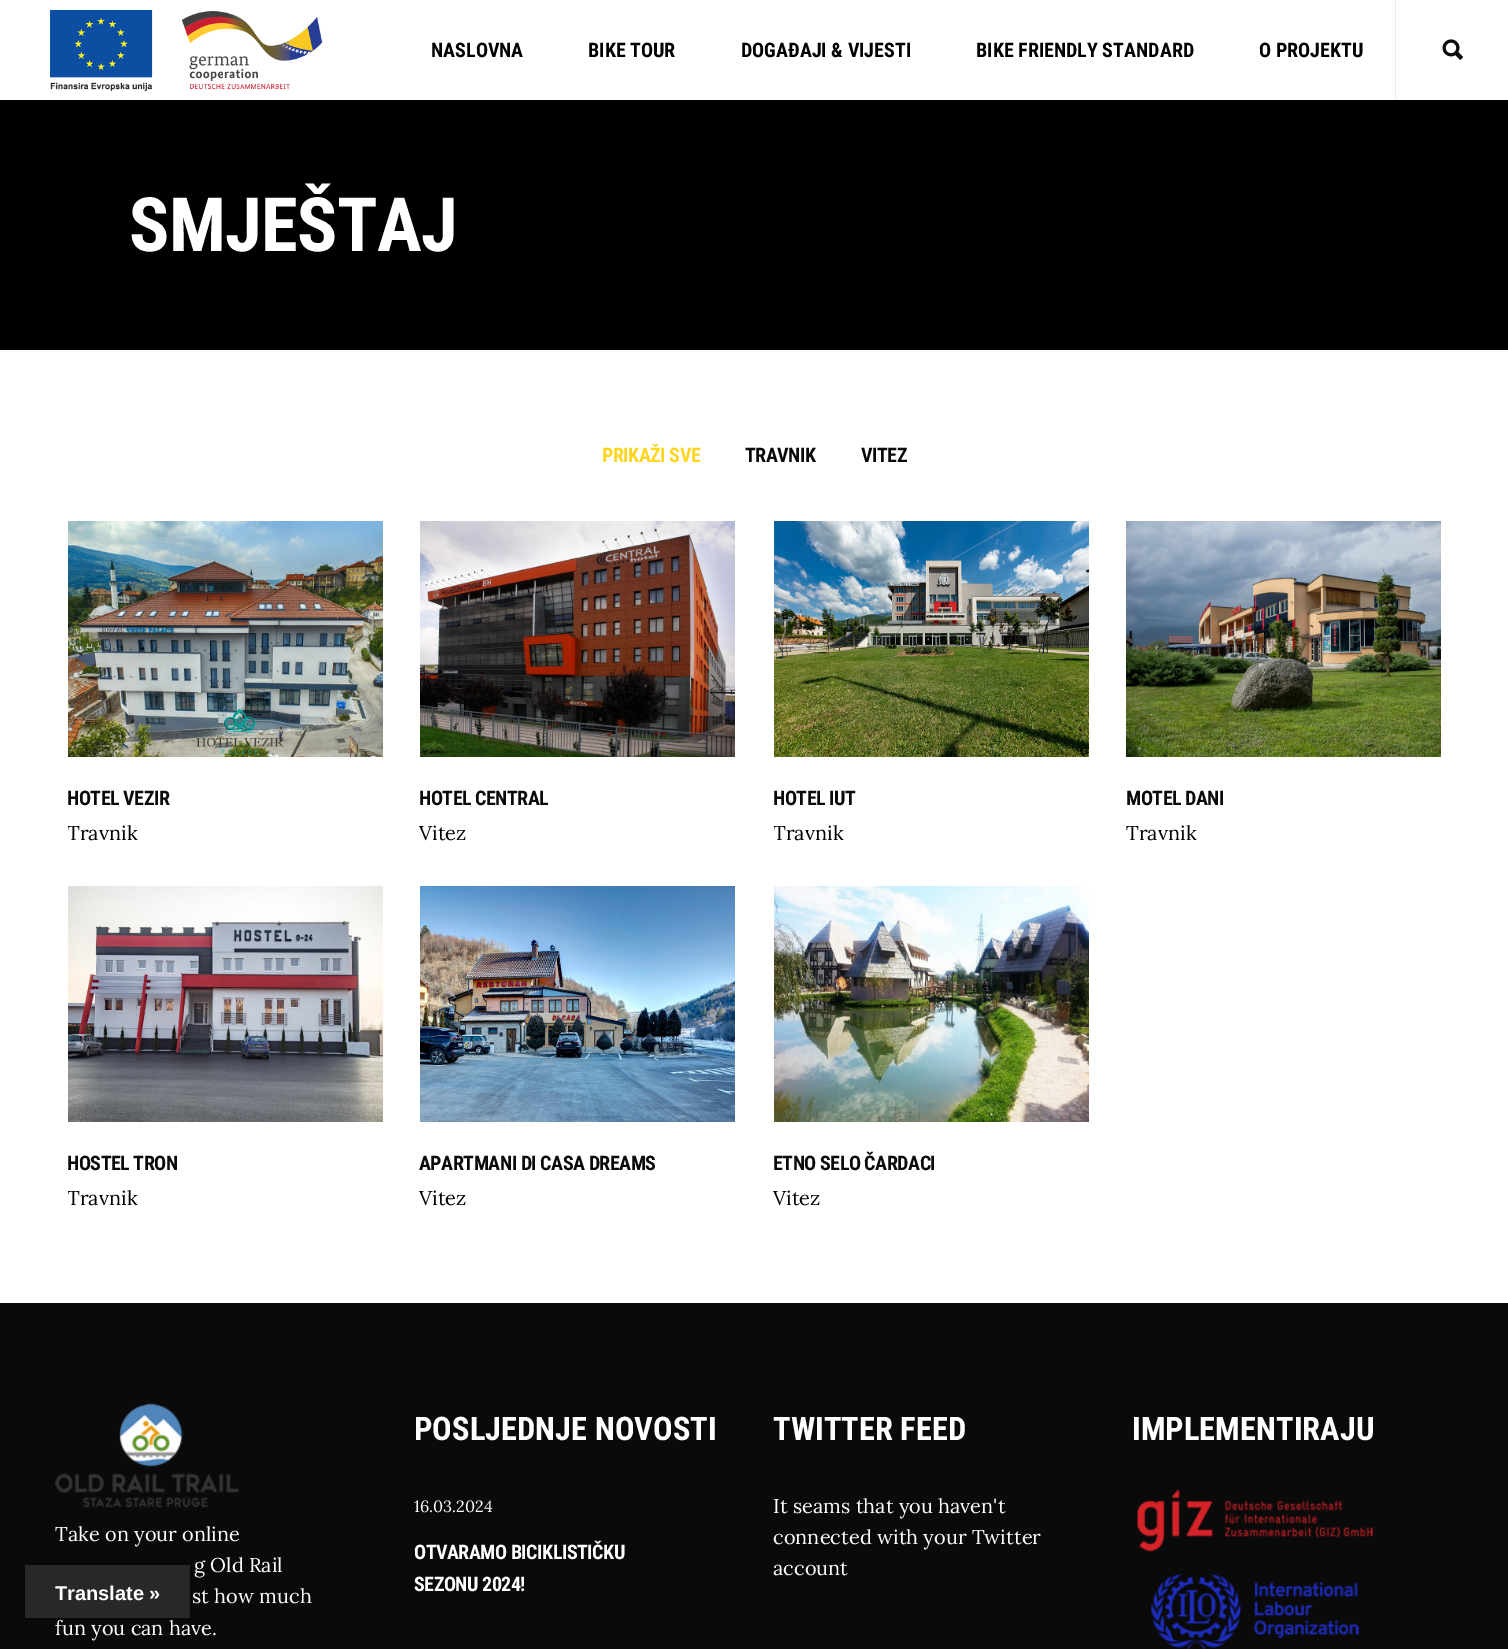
%!PS
<< /PageSize [1508 1649] /PageUsesTransparency true >> setpagedevice
/rgb { 3 { 255 div 3 1 roll } repeat setrgbcolor } def
/font { [ exch dup neg 0 0 3 -1 roll 0 0 ] selectfont } def
/alpha { dup .setfillconstantalpha .setstrokeconstantalpha } def
/roundrect { 5 dict begin { /r /h /w /y /x } { exch def } forall
  x r add y moveto x w add y 2 copy h add r arct x w add y h add x 1 index r arct
  x y h add x y r arct x y 2 copy exch w add exch r arct closepath end } def
/shadow { 12 dict begin { /a /b /q /h /w /y /x } { exch def } forall gsave /was 0 def
  9 -2 -9 { dup b mul 4 div /e exch def 1 sub .425 mul 2.718 exch exp 1 add a .99 .min exch div /now exch def
    1 1 now sub 1 was sub div sub alpha /was now def
    w h .min e 2 mul add 0 gt { x e sub y e sub w e 2 mul add h e 2 mul add
      q e add b .6 mul add w h .min 2 div e add .min 0 .max roundrect fill } if } for grestore end } def
/picture { 5 dict begin { /h /w /y /x /name } { exch def } forall
  gsave x y translate w h scale
  w h 8 [w 0 0 h 0 0] name (r) file false 3 colorimage grestore end } def
0 .pushpdf14devicefilter
0 1649 translate 1 -1 scale
4 setmiterlimit
255 255 255 rgb
0 0 1508 1649 rectfill
(img/1.rgb) 50 10 273 82 picture
235 235 235 rgb
1395 0 1 100 rectfill
(img/2.rgb) 1442 39 22 21 picture
0 0 0 rgb
0 100 1508 250 rectfill
(img/3.rgb) 68 521 315 236 picture
(img/4.rgb) 420 521 315 236 picture
(img/5.rgb) 774 521 315 236 picture
(img/6.rgb) 1126 521 315 236 picture
(img/7.rgb) 68 886 315 236 picture
(img/8.rgb) 420 886 315 236 picture
(img/9.rgb) 774 886 315 236 picture
10 10 10 rgb
0 1303 1508 346 rectfill
(img/10.rgb) 1137 1490 236 159 picture
(img/11.rgb) 55 1403 184 105 picture
0 0 0 rgb
25 1565 165 53 0 5.5 0.3 shadow
40 40 40 rgb
25 1565 165 53 rectfill
/RobotoCondensed-Bold 20 font
0 0 0 rgb
[
  [(NASLOVNA) 431 57]
  [(BIKE TOUR) 588 57]
  [(DOGAĐAJI & VIJESTI) 741 57]
  [(BIKE FRIENDLY STANDARD) 976 57]
  [(O PROJEKTU) 1259 57]
] { aload pop moveto show } forall
/RobotoCondensed-Bold 75 font
255 255 255 rgb
129 251 moveto -0.75 0 (SMJEŠTAJ) ashow
/RobotoCondensed-Bold 20 font
254 214 32 rgb
602 462 moveto -0.5 0 (PRIKAŽI SVE) ashow
10 10 10 rgb
745 462 moveto -0.5 0 (TRAVNIK) ashow
861 462 moveto -0.5 0 (VITEZ) ashow
67 805 moveto -0.5 0 (HOTEL VEZIR) ashow
gsave
68 521 315 328 rectclip
/Lora-Regular 20 font
0 0 0 rgb
67 840 moveto (Travnik) show
grestore
419 805 moveto -0.5 0 (HOTEL CENTRAL) ashow
/Lora-Regular 20 font
0 0 0 rgb
419 840 moveto (Vitez) show
/RobotoCondensed-Bold 20 font
10 10 10 rgb
773 805 moveto -0.5 0 (HOTEL IUT) ashow
gsave
774 521 315 328 rectclip
/Lora-Regular 20 font
0 0 0 rgb
773 840 moveto (Travnik) show
grestore
1126 805 moveto -0.5 0 (MOTEL DANI) ashow
/Lora-Regular 20 font
0 0 0 rgb
1126 840 moveto (Travnik) show
/RobotoCondensed-Bold 20 font
10 10 10 rgb
67 1170 moveto -0.5 0 (HOSTEL TRON) ashow
gsave
68 886 315 328 rectclip
/Lora-Regular 20 font
0 0 0 rgb
67 1205 moveto (Travnik) show
grestore
419 1170 moveto -0.5 0 (APARTMANI DI CASA DREAMS) ashow
/Lora-Regular 20 font
0 0 0 rgb
419 1205 moveto (Vitez) show
/RobotoCondensed-Bold 20 font
10 10 10 rgb
773 1170 moveto -0.5 0 (ETNO SELO ČARDACI) ashow
/Lora-Regular 20 font
0 0 0 rgb
773 1205 moveto (Vitez) show
/RobotoCondensed-Bold 32.5 font
255 255 255 rgb
414 1440 moveto (POSLJEDNJE NOVOSTI) show
/Lora-Regular 16.25 font
414 1512 moveto (16.03.2024) show
/RobotoCondensed-Bold 20 font
414 1559 moveto -0.5 0 (OTVARAMO BICIKLISTIČKU) ashow
414 1591 moveto -0.5 0 (SEZONU 2024!) ashow
/RobotoCondensed-Bold 32.5 font
773 1440 moveto (TWITTER FEED) show
/Lora-Regular 20 font
[
  [(It seams that you haven't) 773 1513]
  [(connected with your Twitter) 773 1544]
  [(account) 773 1575]
] { aload pop moveto show } forall
/RobotoCondensed-Bold 32.5 font
1132 1440 moveto (IMPLEMENTIRAJU) show
/Lora-Regular 20 font
[
  [(Take on your online) 55 1541]
  [(g Old Rail) 194 1572]
  [(st how much) 192 1603]
  [(fun you can have.) 55 1635]
] { aload pop moveto show } forall
/LiberationSans-Bold 20 font
55 1600 moveto (Translate ») show
.poppdf14devicefilter showpage
